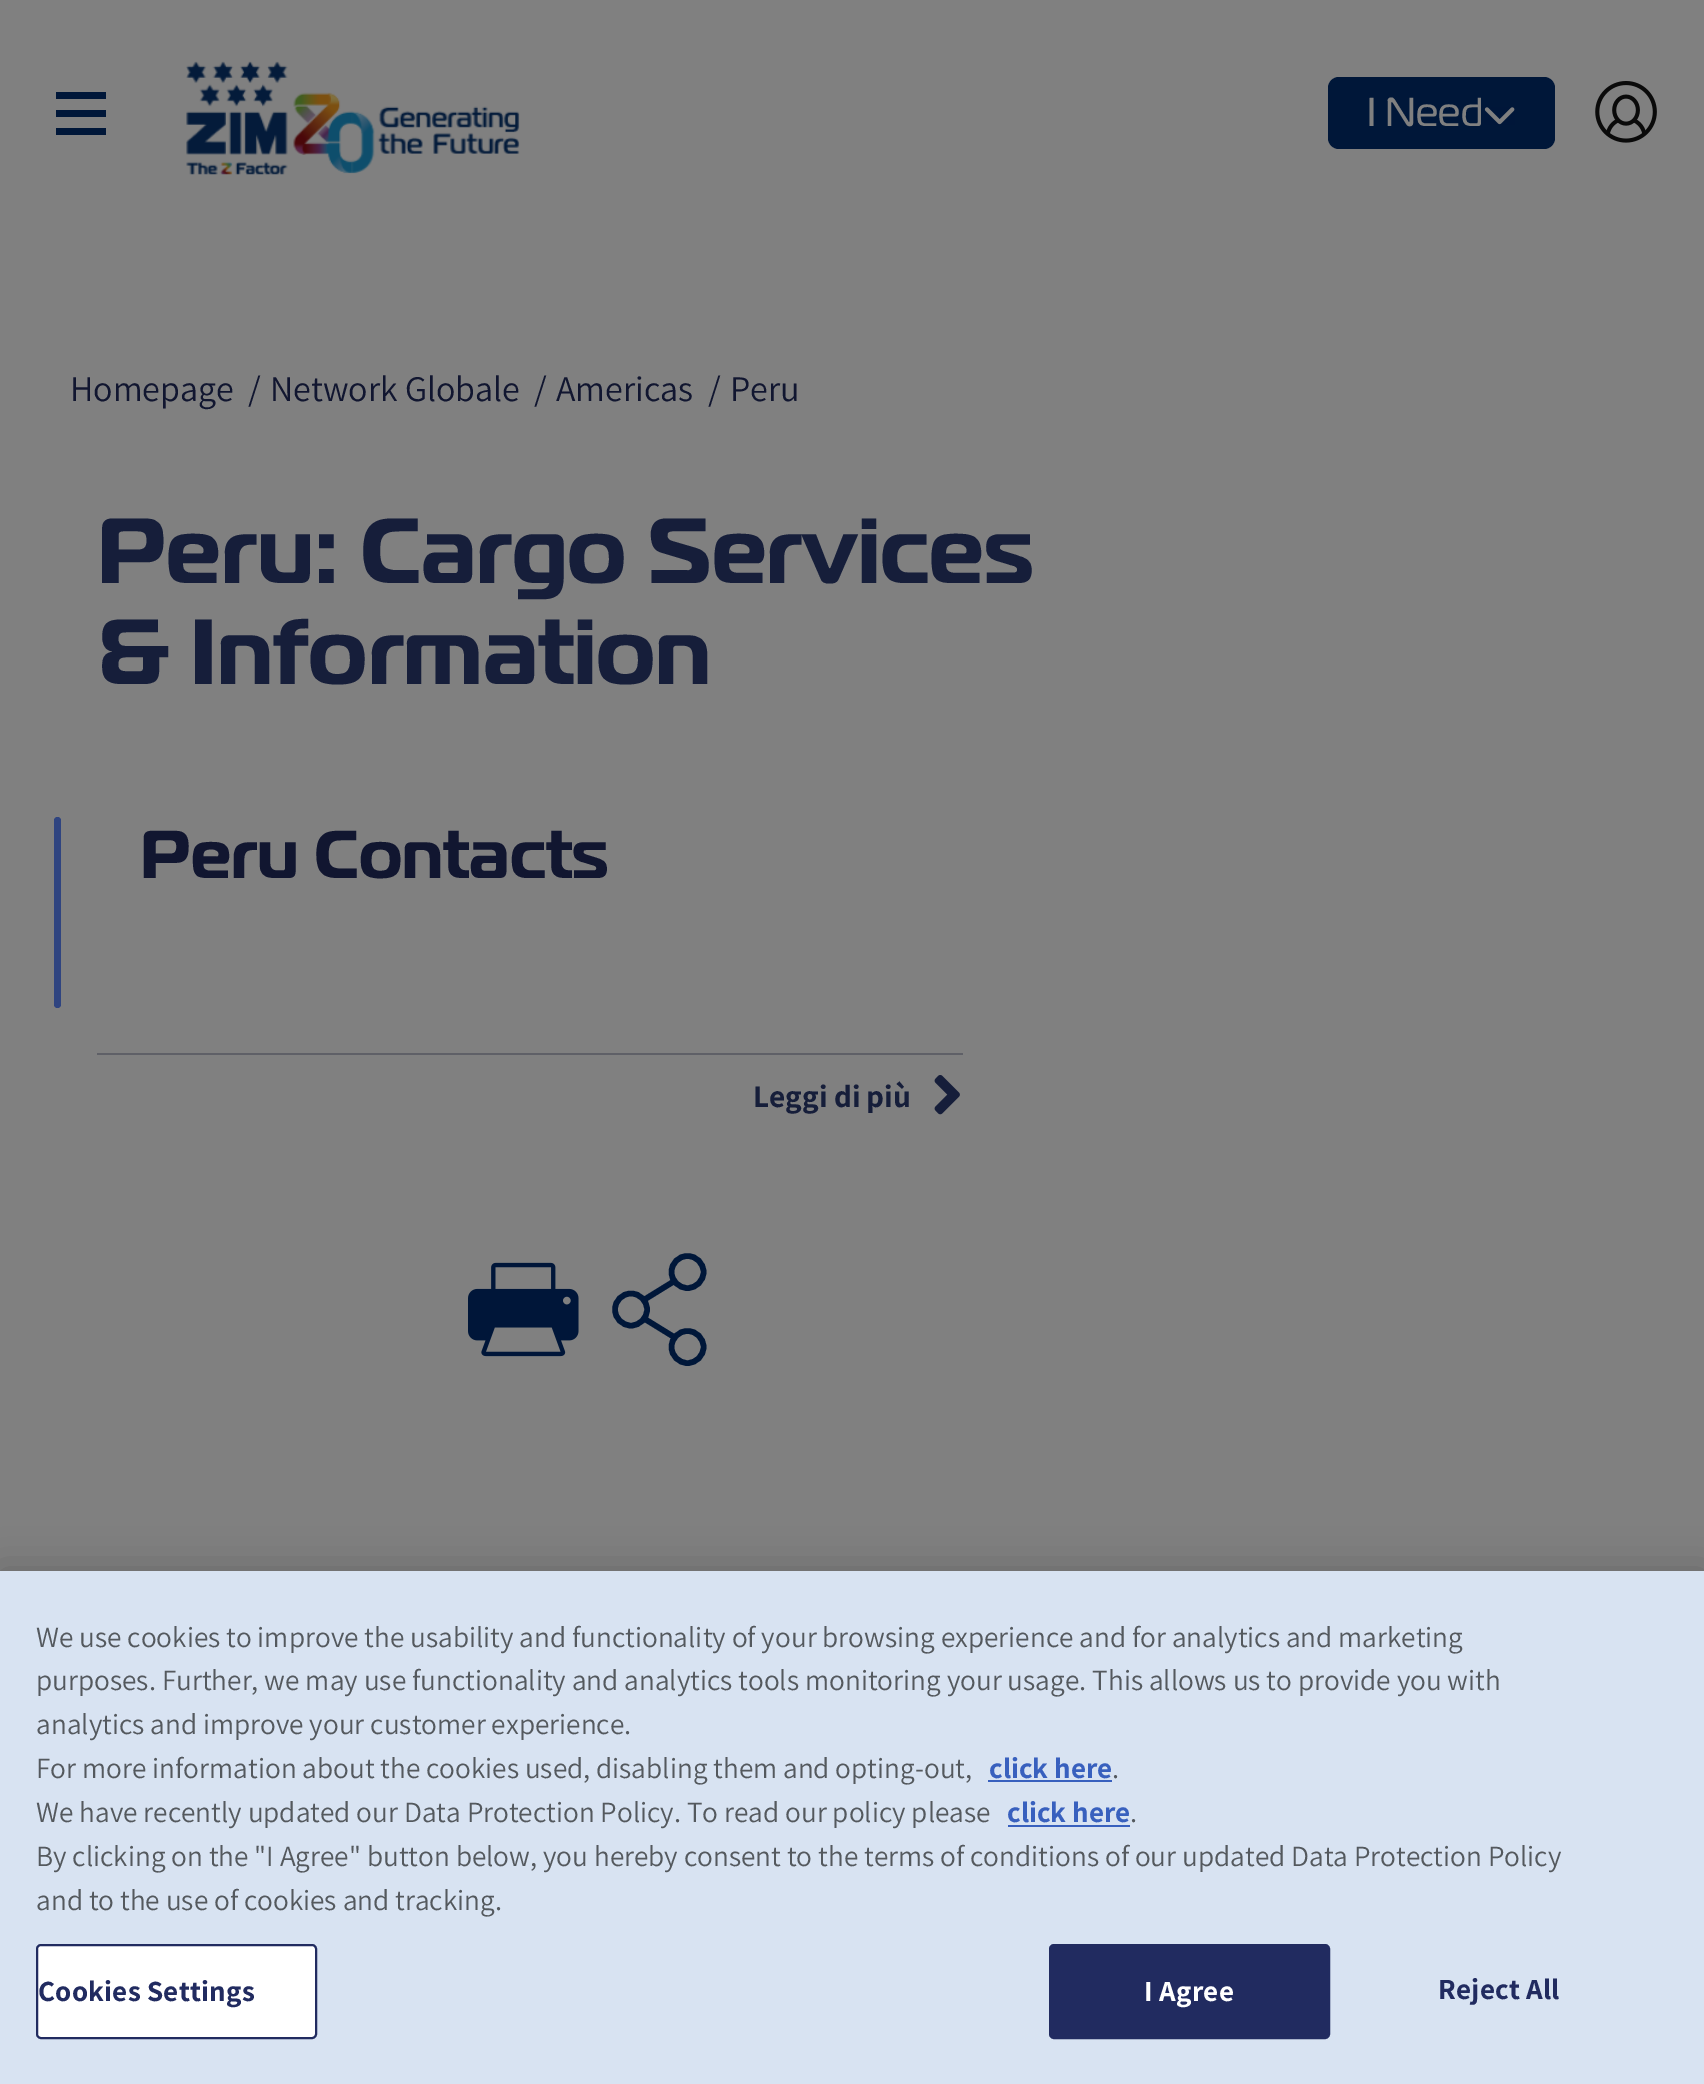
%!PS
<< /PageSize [1704 2084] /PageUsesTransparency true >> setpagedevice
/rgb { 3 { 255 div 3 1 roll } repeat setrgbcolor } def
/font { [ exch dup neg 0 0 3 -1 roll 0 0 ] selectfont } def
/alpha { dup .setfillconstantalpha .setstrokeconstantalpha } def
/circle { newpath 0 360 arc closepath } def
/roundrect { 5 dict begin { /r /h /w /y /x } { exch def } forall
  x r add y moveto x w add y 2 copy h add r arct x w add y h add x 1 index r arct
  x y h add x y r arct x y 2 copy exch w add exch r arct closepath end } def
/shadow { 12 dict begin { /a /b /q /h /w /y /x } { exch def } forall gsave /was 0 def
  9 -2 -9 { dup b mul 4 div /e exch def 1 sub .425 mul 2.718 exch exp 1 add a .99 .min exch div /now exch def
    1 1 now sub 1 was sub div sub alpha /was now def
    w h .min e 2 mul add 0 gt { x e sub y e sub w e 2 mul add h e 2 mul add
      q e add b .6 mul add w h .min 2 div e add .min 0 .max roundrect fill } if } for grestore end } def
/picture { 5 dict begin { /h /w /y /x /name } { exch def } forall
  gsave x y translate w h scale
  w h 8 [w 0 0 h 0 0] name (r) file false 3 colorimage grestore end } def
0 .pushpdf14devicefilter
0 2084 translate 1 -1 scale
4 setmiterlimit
128 128 128 rgb
0 0 1704 2084 rectfill
[
  [56 92 50 7 0 23 57]
  [56 110 50 7 0 23 57]
  [56 128 50 7 0 23 57]
] { aload pop rgb rectfill } forall
(img/1.rgb) 186 61 334 114 picture
1328 77 227 72 11 roundrect fill
(img/2.rgb) 1484 107 31 18 picture
(img/3.rgb) 1595 81 62 62 picture
47 68 128 rgb
54 817 7 191 3.5 roundrect fill
95 96 103 rgb
97 1053 866 2 rectfill
(img/4.rgb) 934 1075 26 40 picture
(img/5.rgb) 468 1262 111 95 picture
0 23 57 rgb
5.6 setlinewidth
687.5 1272 16 circle stroke
631 1309.5 16 circle stroke
687.5 1347 16 circle stroke
644.5 1299.5 moveto 674.5 1281 lineto 644 1318.5 moveto 674 1337 lineto stroke
0 0 0 rgb
0 1571 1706 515 0 20 0.2 shadow
[
  [0 1571 1704 513 216 227 242]
  [988 1780 124 2 56 96 190]
  [1008 1825 122 2 56 96 190]
] { aload pop rgb rectfill } forall
255 255 255 rgb
37 1945 279 93 4 roundrect gsave fill grestore
33 43 96 rgb
2 setlinewidth
stroke
1050 1945 279 93 4 roundrect gsave fill grestore
stroke
/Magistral-Regular 40.5 font
128 128 128 rgb
1367 126 moveto (I Need) show
/Assistant-Regular 36 font
17 22 48 rgb
[
  [(Homepage) 70 401]
  [(/) 248 401]
  [(Network Globale) 270 401]
  [(/) 534 401]
  [(Americas) 556 401]
  [(/) 708 401]
  [(Peru) 730 401]
] { aload pop moveto show } forall
/Magistral-Bold 92.25 font
22 30 58 rgb
97 583 moveto (Peru: Cargo Services) show
97 684 moveto (& Information) show
/Magistral-Bold 67.5 font
17 22 48 rgb
140 878 moveto (Peru Contacts) show
/Assistant-Bold 31.5 font
22 30 58 rgb
753 1107 moveto (Leggi di più) show
/Assistant-Regular 29.27 font
84 89 94 rgb
[
  [(We use cookies to improve the usability and functionality of your browsing experience and for analytics and marketing) 36 1647]
  [(purposes. Further, we may use functionality and analytics tools monitoring your usage. This allows us to provide you with) 36 1690]
  [(analytics and improve your customer experience.) 36 1734]
  [(For more information about the cookies used, disabling them and opting-out,) 36 1778]
] { aload pop moveto show } forall
/Assistant-Bold 29.27 font
56 96 190 rgb
989 1778 moveto (click here) show
/Assistant-Regular 29.27 font
84 89 94 rgb
1112 1778 moveto (.) show
36 1822 moveto (We have recently updated our Data Protection Policy. To read our policy please) show
/Assistant-Bold 29.27 font
56 96 190 rgb
1007 1822 moveto (click here) show
/Assistant-Regular 29.27 font
84 89 94 rgb
[
  [(.) 1130 1822]
  [(By clicking on the "I Agree" button below, you hereby consent to the terms of conditions of our updated Data Protection Policy) 36 1866]
  [(and to the use of cookies and tracking.) 36 1910]
] { aload pop moveto show } forall
/Assistant-Bold 29.27 font
33 43 96 rgb
38 2001 moveto 0.25 0 (Cookies Settings) ashow
255 255 255 rgb
1144 2001 moveto 0.25 0 (I Agree) ashow
33 43 96 rgb
1438 1999 moveto 0.25 0 (Reject All) ashow
.poppdf14devicefilter showpage
